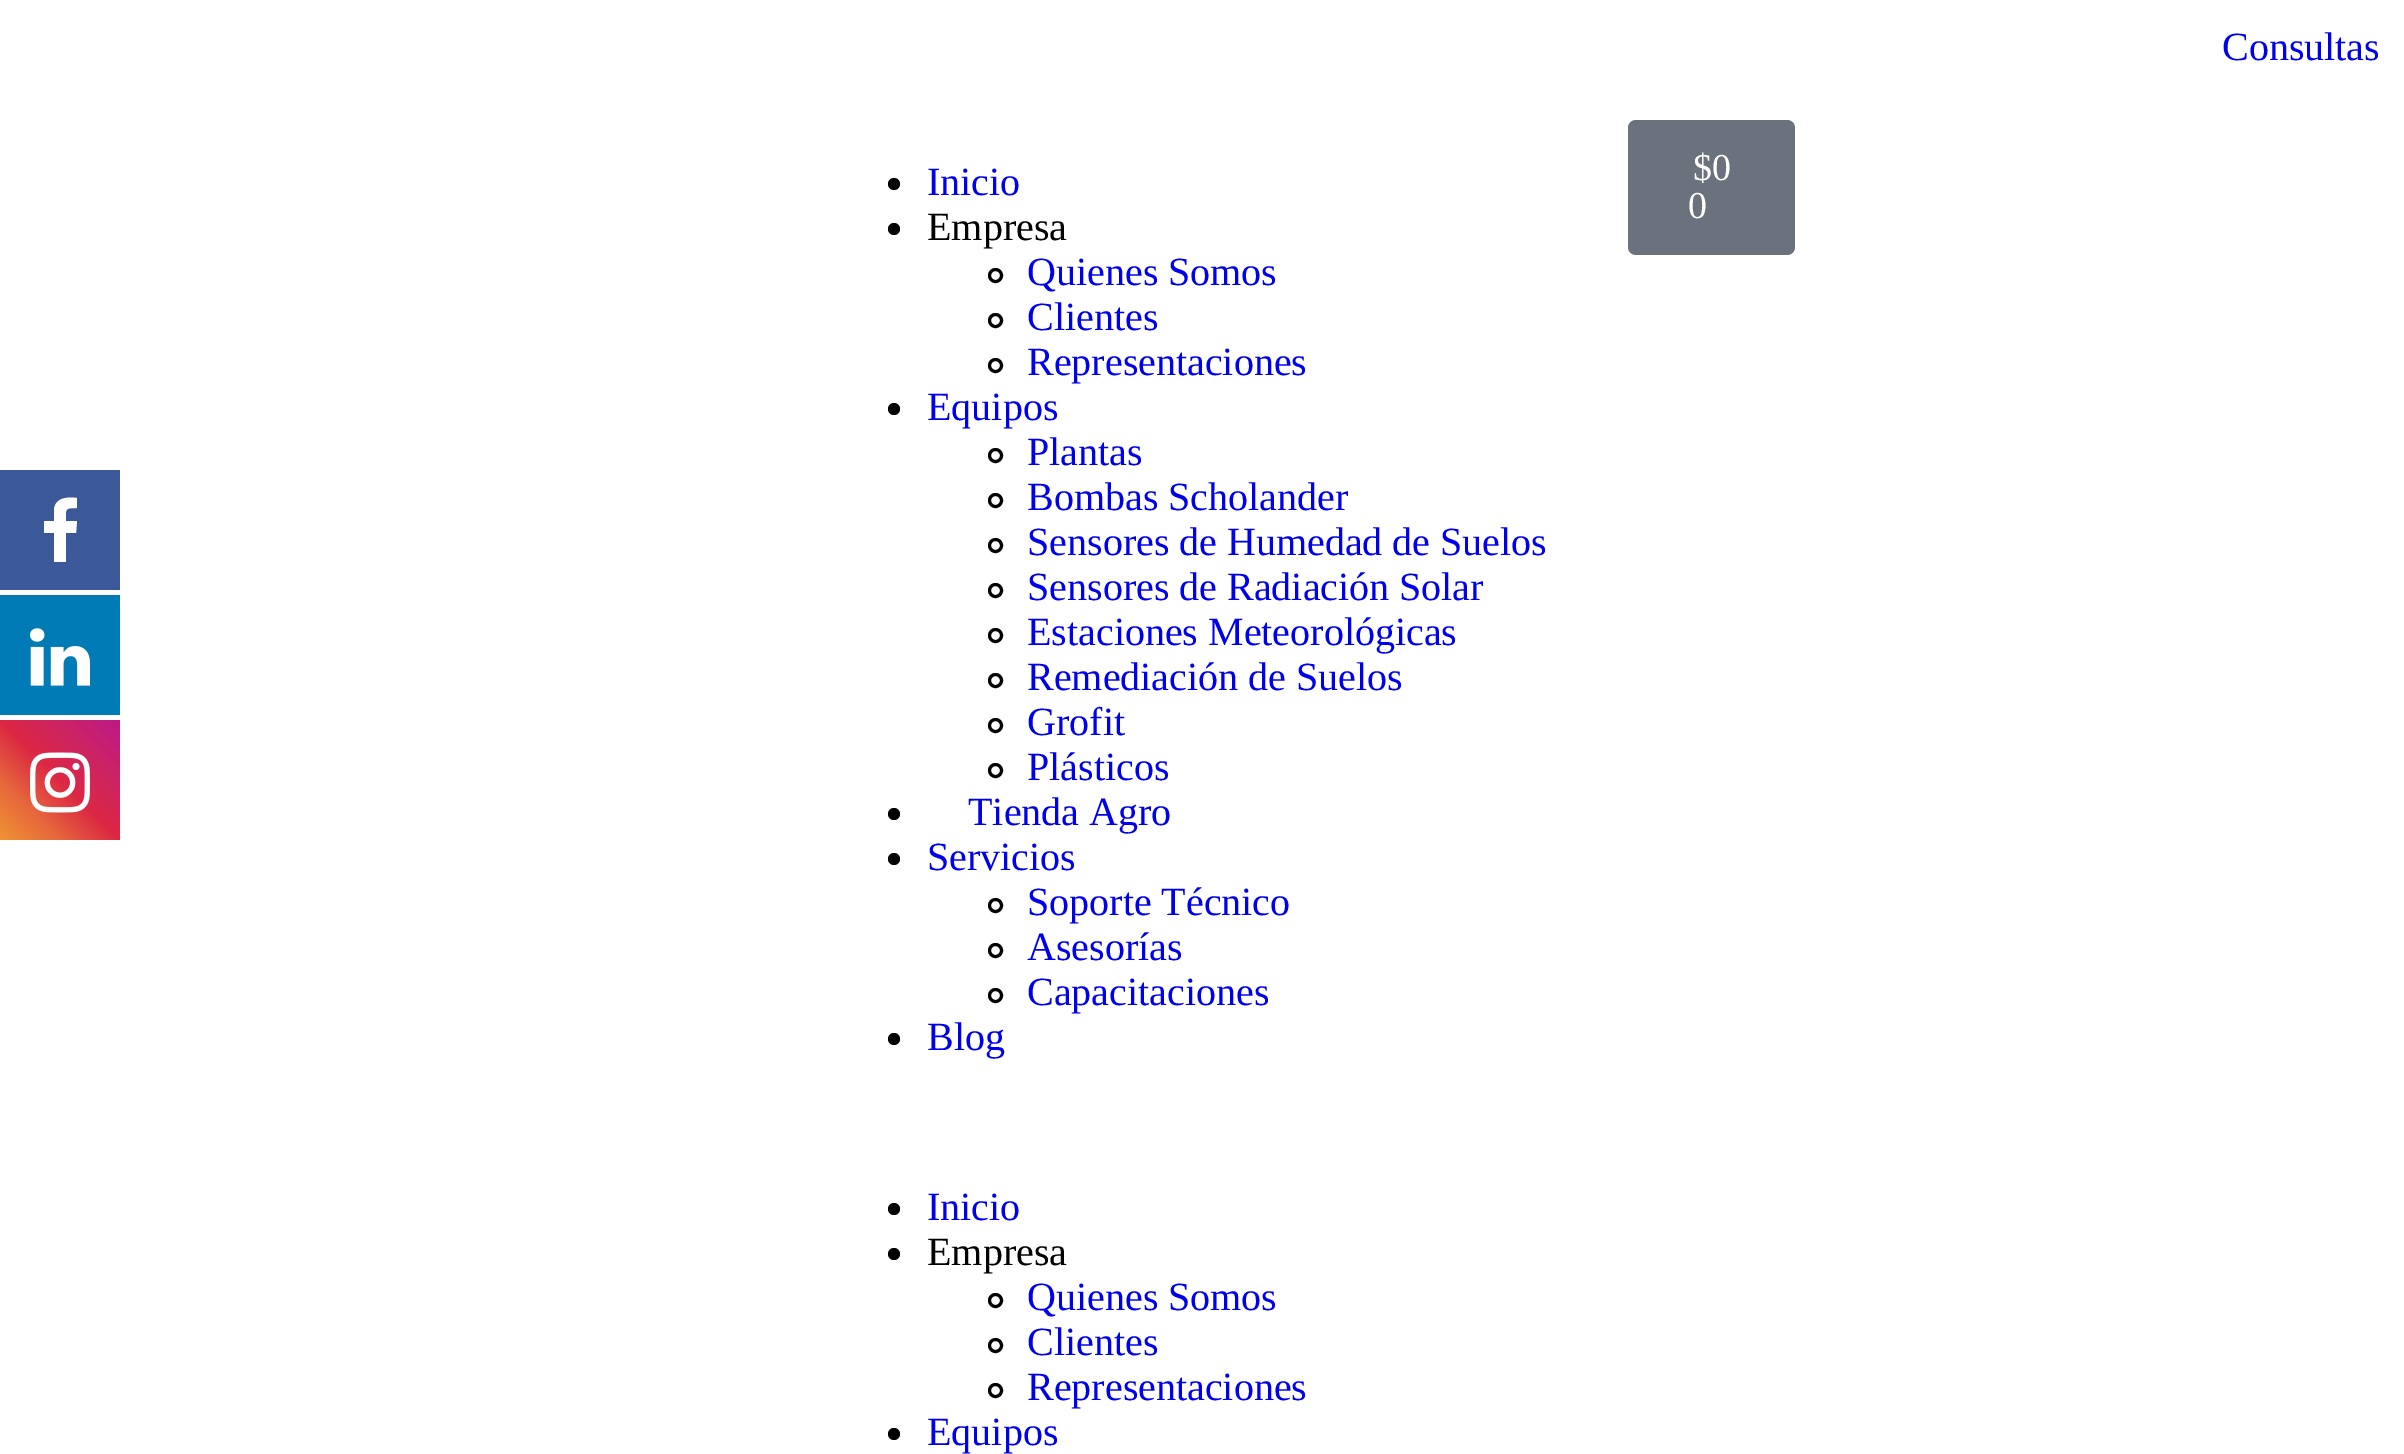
%!PS
<< /PageSize [2404 1454] >> setpagedevice
/rgb { 3 { 255 div 3 1 roll } repeat setrgbcolor } def
/font { [ exch dup neg 0 0 3 -1 roll 0 0 ] selectfont } def
/circle { newpath 0 360 arc closepath } def
/roundrect { 5 dict begin { /r /h /w /y /x } { exch def } forall
  x r add y moveto x w add y 2 copy h add r arct x w add y h add x 1 index r arct
  x y h add x y r arct x y 2 copy exch w add exch r arct closepath end } def
/picture { 5 dict begin { /h /w /y /x /name } { exch def } forall
  gsave x y translate w h scale
  w h 8 [w 0 0 h 0 0] name (r) file false 3 colorimage grestore end } def
0 1454 translate 1 -1 scale
4 setmiterlimit
255 255 255 rgb
0 0 2404 1454 rectfill
59 89 152 rgb
0 470 120 120 rectfill
255 255 255 rgb
77 498 moveto 77 508 lineto 64 508 66 509 66 521 curveto 77 521 lineto 76 533 lineto 66 533 lineto 66 562 lineto 54 562 lineto 54 533 lineto 44 533 lineto 44 521 lineto 54 521 lineto 54 509 lineto 56 497 68 497 77 498 curveto closepath fill
0 123 182 rgb
0 595 120 120 rectfill
(img/1.rgb) 30 628 60 58 picture
gsave 0 720 moveto 120 720 lineto 120 840 lineto 0 840 lineto closepath clip newpath
<< /ShadingType 2 /ColorSpace /DeviceRGB /Coords [0 840 120 720] /Extend [true true] /Function << /FunctionType 3 /Domain [0 1] /Functions [<< /FunctionType 2 /Domain [0 1] /C0 [0.941 0.58 0.2] /C1 [0.902 0.408 0.235] /N 1 >> << /FunctionType 2 /Domain [0 1] /C0 [0.902 0.408 0.235] /C1 [0.863 0.153 0.263] /N 1 >> << /FunctionType 2 /Domain [0 1] /C0 [0.863 0.153 0.263] /C1 [0.8 0.137 0.4] /N 1 >> << /FunctionType 2 /Domain [0 1] /C0 [0.8 0.137 0.4] /C1 [0.737 0.094 0.533] /N 1 >>] /Bounds [0.25 0.5 0.75] /Encode [0 1 0 1 0 1 0 1] >> >> shfill grestore
(img/2.rgb) 30 752 60 61 picture
0 0 0 rgb
894 184 6 circle fill
894 229 6 circle fill
3 setlinewidth
995.5 275.5 6 circle stroke
995.5 320.5 6 circle stroke
995.5 365.5 6 circle stroke
894 409 6 circle fill
995.5 455.5 6 circle stroke
995.5 500.5 6 circle stroke
995.5 545.5 6 circle stroke
995.5 590.5 6 circle stroke
995.5 635.5 6 circle stroke
995.5 680.5 6 circle stroke
995.5 725.5 6 circle stroke
995.5 770.5 6 circle stroke
894 814 6 circle fill
894 859 6 circle fill
995.5 905.5 6 circle stroke
995.5 950.5 6 circle stroke
995.5 995.5 6 circle stroke
894 1039 6 circle fill
894 1209 6 circle fill
894 1254 6 circle fill
995.5 1300.5 6 circle stroke
995.5 1345.5 6 circle stroke
995.5 1390.5 6 circle stroke
894 1434 6 circle fill
105 114 125 rgb
1628 120 167 135 8 roundrect fill
/LiberationSerif-Regular 40 font
0 0 238 rgb
2222 60 moveto (Consultas) show
927 195 moveto (Inicio) show
0 0 0 rgb
927 240 moveto (Empresa) show
0 0 238 rgb
[
  [(Quienes Somos) 1027 285]
  [(Clientes) 1027 330]
  [(Representaciones) 1027 375]
  [(Equipos) 927 420]
  [(Plantas) 1027 465]
  [(Bombas Scholander) 1027 510]
  [(Sensores de Humedad de Suelos) 1027 555]
  [(Sensores de Radiación Solar) 1027 600]
  [(Estaciones Meteorológicas) 1027 645]
  [(Remediación de Suelos) 1027 690]
  [(Grofit) 1027 735]
  [(Plásticos) 1027 780]
  [(Tienda Agro) 968 825]
  [(Servicios) 927 870]
  [(Soporte Técnico) 1027 915]
  [(Asesorías) 1027 960]
  [(Capacitaciones) 1027 1005]
  [(Blog) 927 1050]
  [(Inicio) 927 1220]
] { aload pop moveto show } forall
0 0 0 rgb
927 1265 moveto (Empresa) show
0 0 238 rgb
[
  [(Quienes Somos) 1027 1310]
  [(Clientes) 1027 1355]
  [(Representaciones) 1027 1400]
  [(Equipos) 927 1445]
] { aload pop moveto show } forall
/LiberationSerif-Regular 38 font
255 255 255 rgb
1693 180 moveto ($0) show
1688 218 moveto (0) show
showpage
